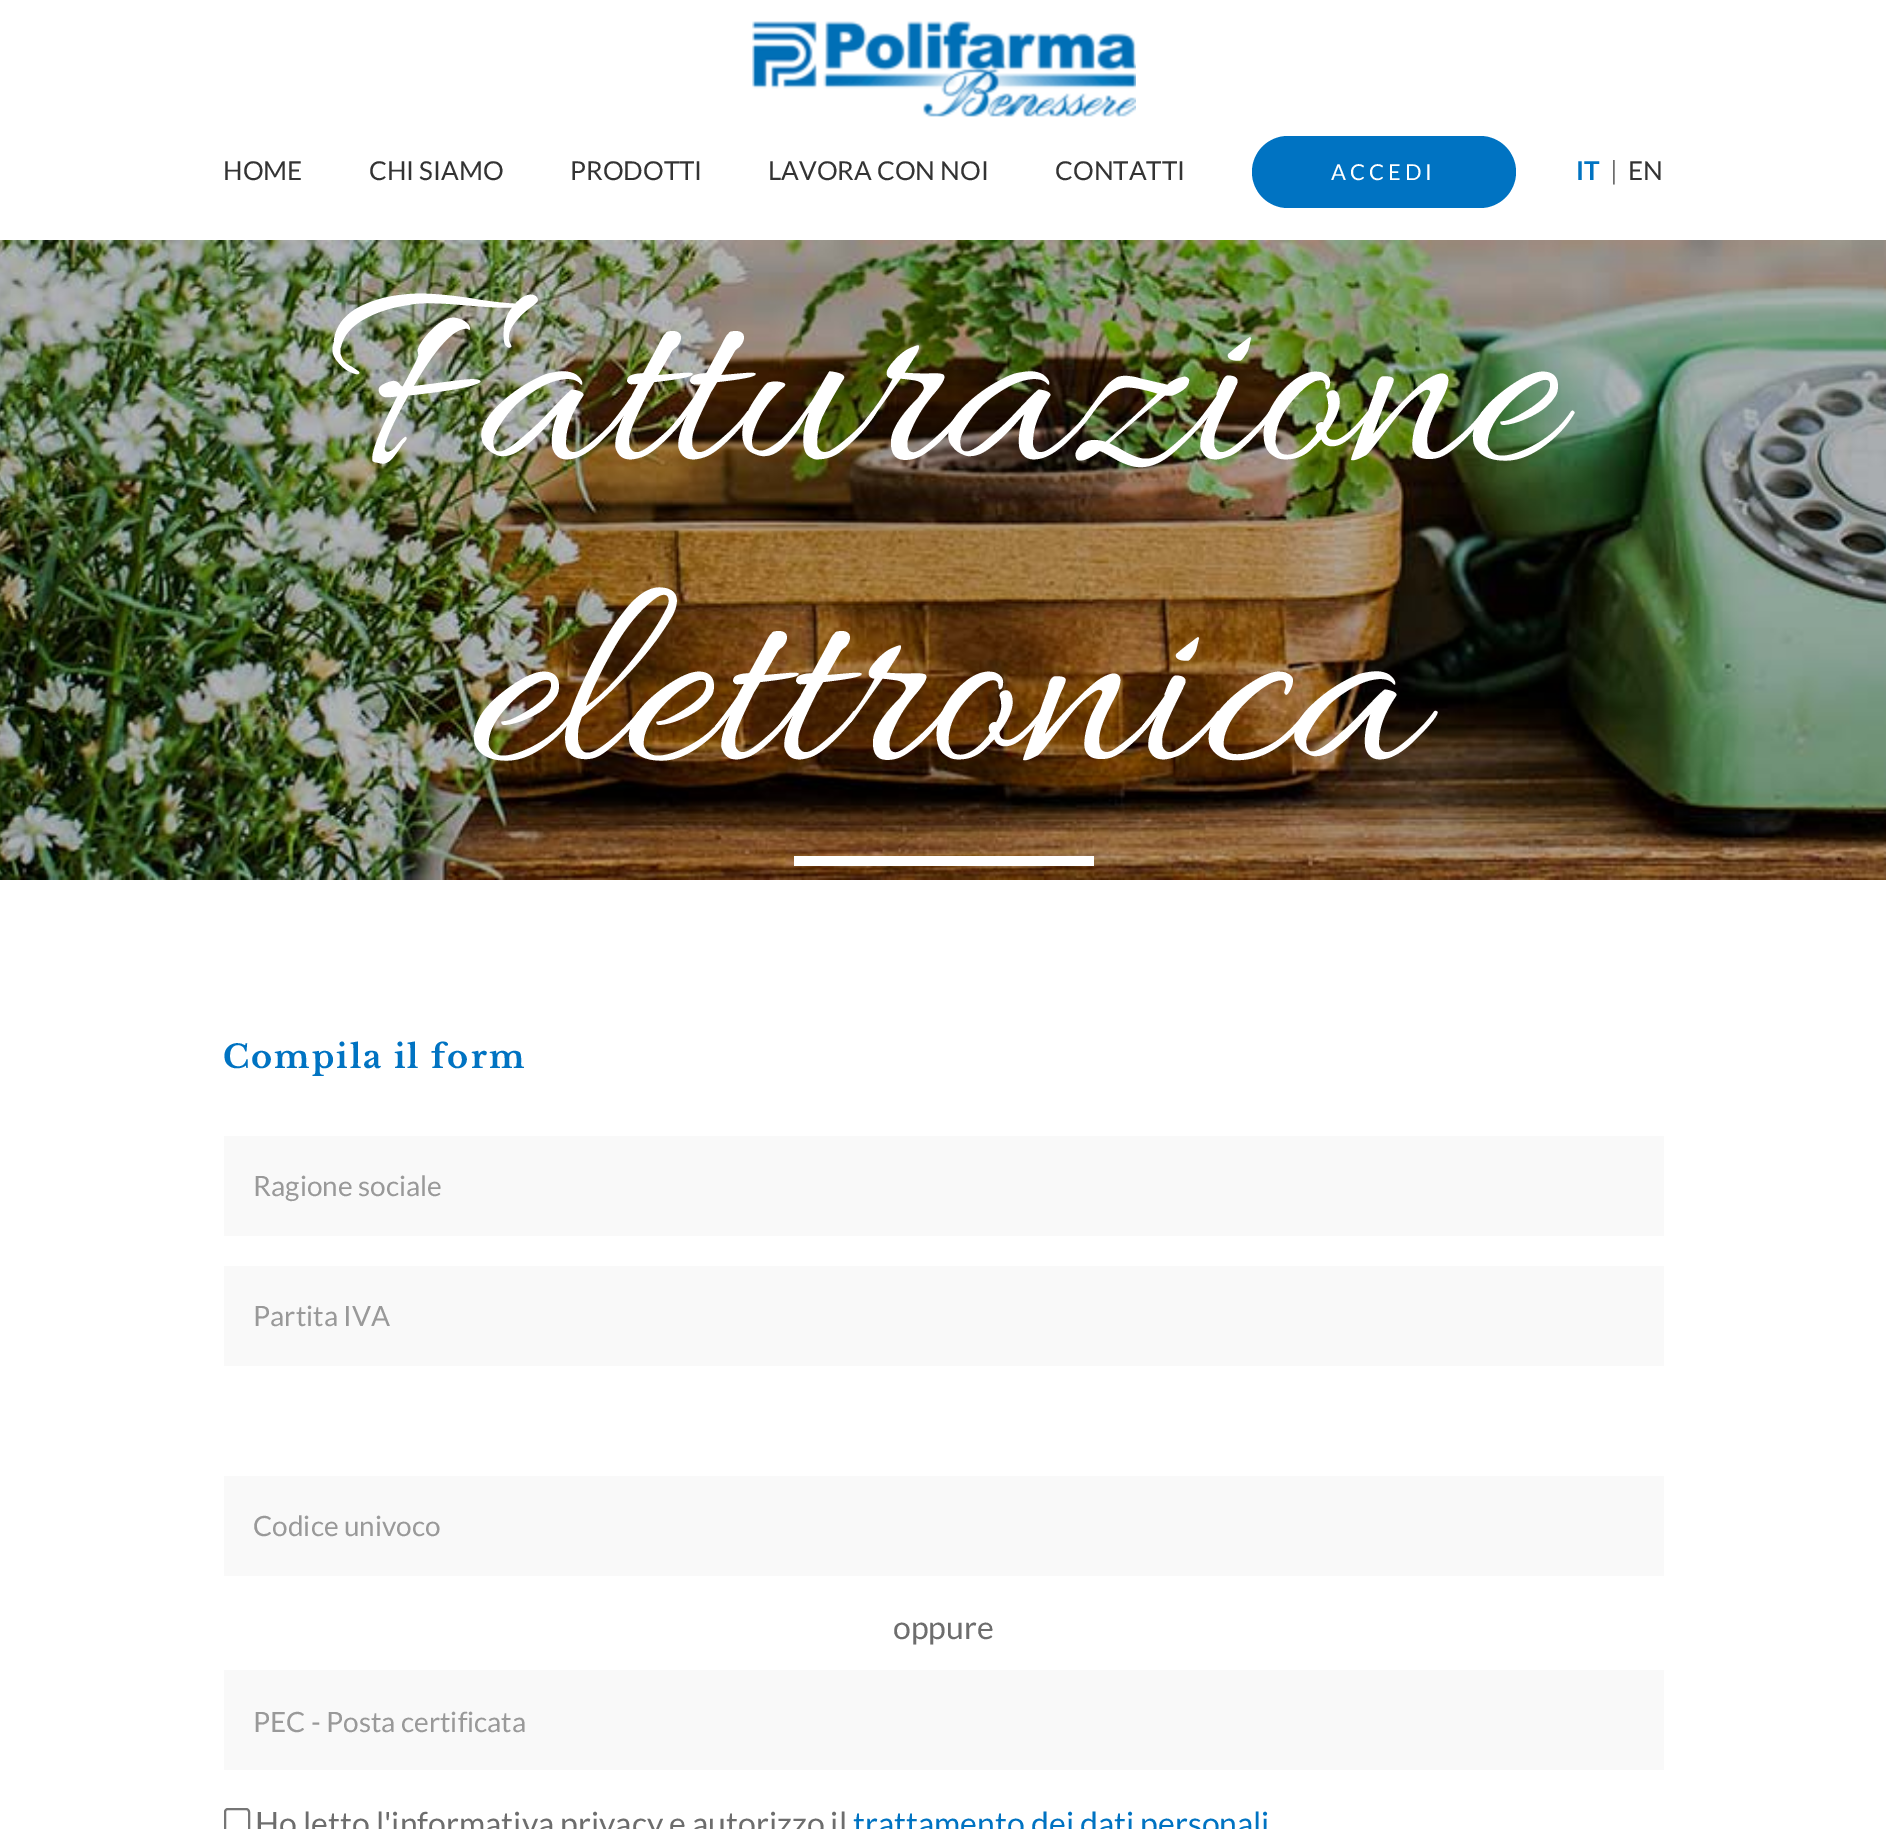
%!PS
<< /PageSize [1886 1829] >> setpagedevice
/rgb { 3 { 255 div 3 1 roll } repeat setrgbcolor } def
/font { [ exch dup neg 0 0 3 -1 roll 0 0 ] selectfont } def
/roundrect { 5 dict begin { /r /h /w /y /x } { exch def } forall
  x r add y moveto x w add y 2 copy h add r arct x w add y h add x 1 index r arct
  x y h add x y r arct x y 2 copy exch w add exch r arct closepath end } def
/picture { 5 dict begin { /h /w /y /x /name } { exch def } forall
  gsave x y translate w h scale
  w h 8 [w 0 0 h 0 0] name (r) file false 3 colorimage grestore end } def
0 1829 translate 1 -1 scale
4 setmiterlimit
255 255 255 rgb
0 0 1886 1829 rectfill
(img/1.rgb) 752 21 384 96 picture
0 115 194 rgb
1252 136 264 72 36 roundrect fill
(img/2.rgb) 0 240 1886 640 picture
[
  [794 856 300 10 255 255 255]
  [224 1136 1440 100 249 249 249]
  [224 1266 1440 100 249 249 249]
  [224 1476 1440 100 249 249 249]
  [224 1670 1440 100 249 249 249]
] { aload pop rgb rectfill } forall
118 118 118 rgb
2 setlinewidth
225 1809 24 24 3 roundrect stroke
/Lato-Regular 26 font
51 51 51 rgb
[
  [(HOME) 223 180]
  [(CHI SIAMO) 369 180]
  [(PRODOTTI) 570 180]
  [(LAVORA CON NOI) 768 180]
  [(CONTATTI) 1055 180]
] { aload pop moveto show } forall
/Lato-Regular 22 font
255 255 255 rgb
1331 180 moveto 4 0 (ACCEDI) ashow
/Lato-Bold 26 font
0 115 194 rgb
1576 180 moveto (IT) show
/Lato-Regular 26 font
109 109 109 rgb
1610 180 moveto (|) show
51 51 51 rgb
1628 180 moveto (EN) show
/Allura-Regular 280 font
255 255 255 rgb
330 453 moveto (Fatturazione) show
468 753 moveto (elettronica) show
/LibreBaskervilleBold-Bold 32 font
0 115 194 rgb
223 1068 moveto 2 0 (Compila il form) ashow
/Lato-Regular 28 font
153 153 153 rgb
[
  [(Ragione sociale) 253 1196]
  [(Partita IVA) 253 1326]
  [(Codice univoco) 253 1536]
] { aload pop moveto show } forall
/Lato-Regular 32 font
109 109 109 rgb
893 1639 moveto (oppure) show
/Lato-Regular 28 font
153 153 153 rgb
253 1732 moveto (PEC - Posta certificata) show
/Lato-Regular 32 font
109 109 109 rgb
255 1835 moveto (Ho letto l'informativa privacy e autorizzo il) show
0 115 194 rgb
853 1835 moveto (trattamento dei dati personali) show
showpage
